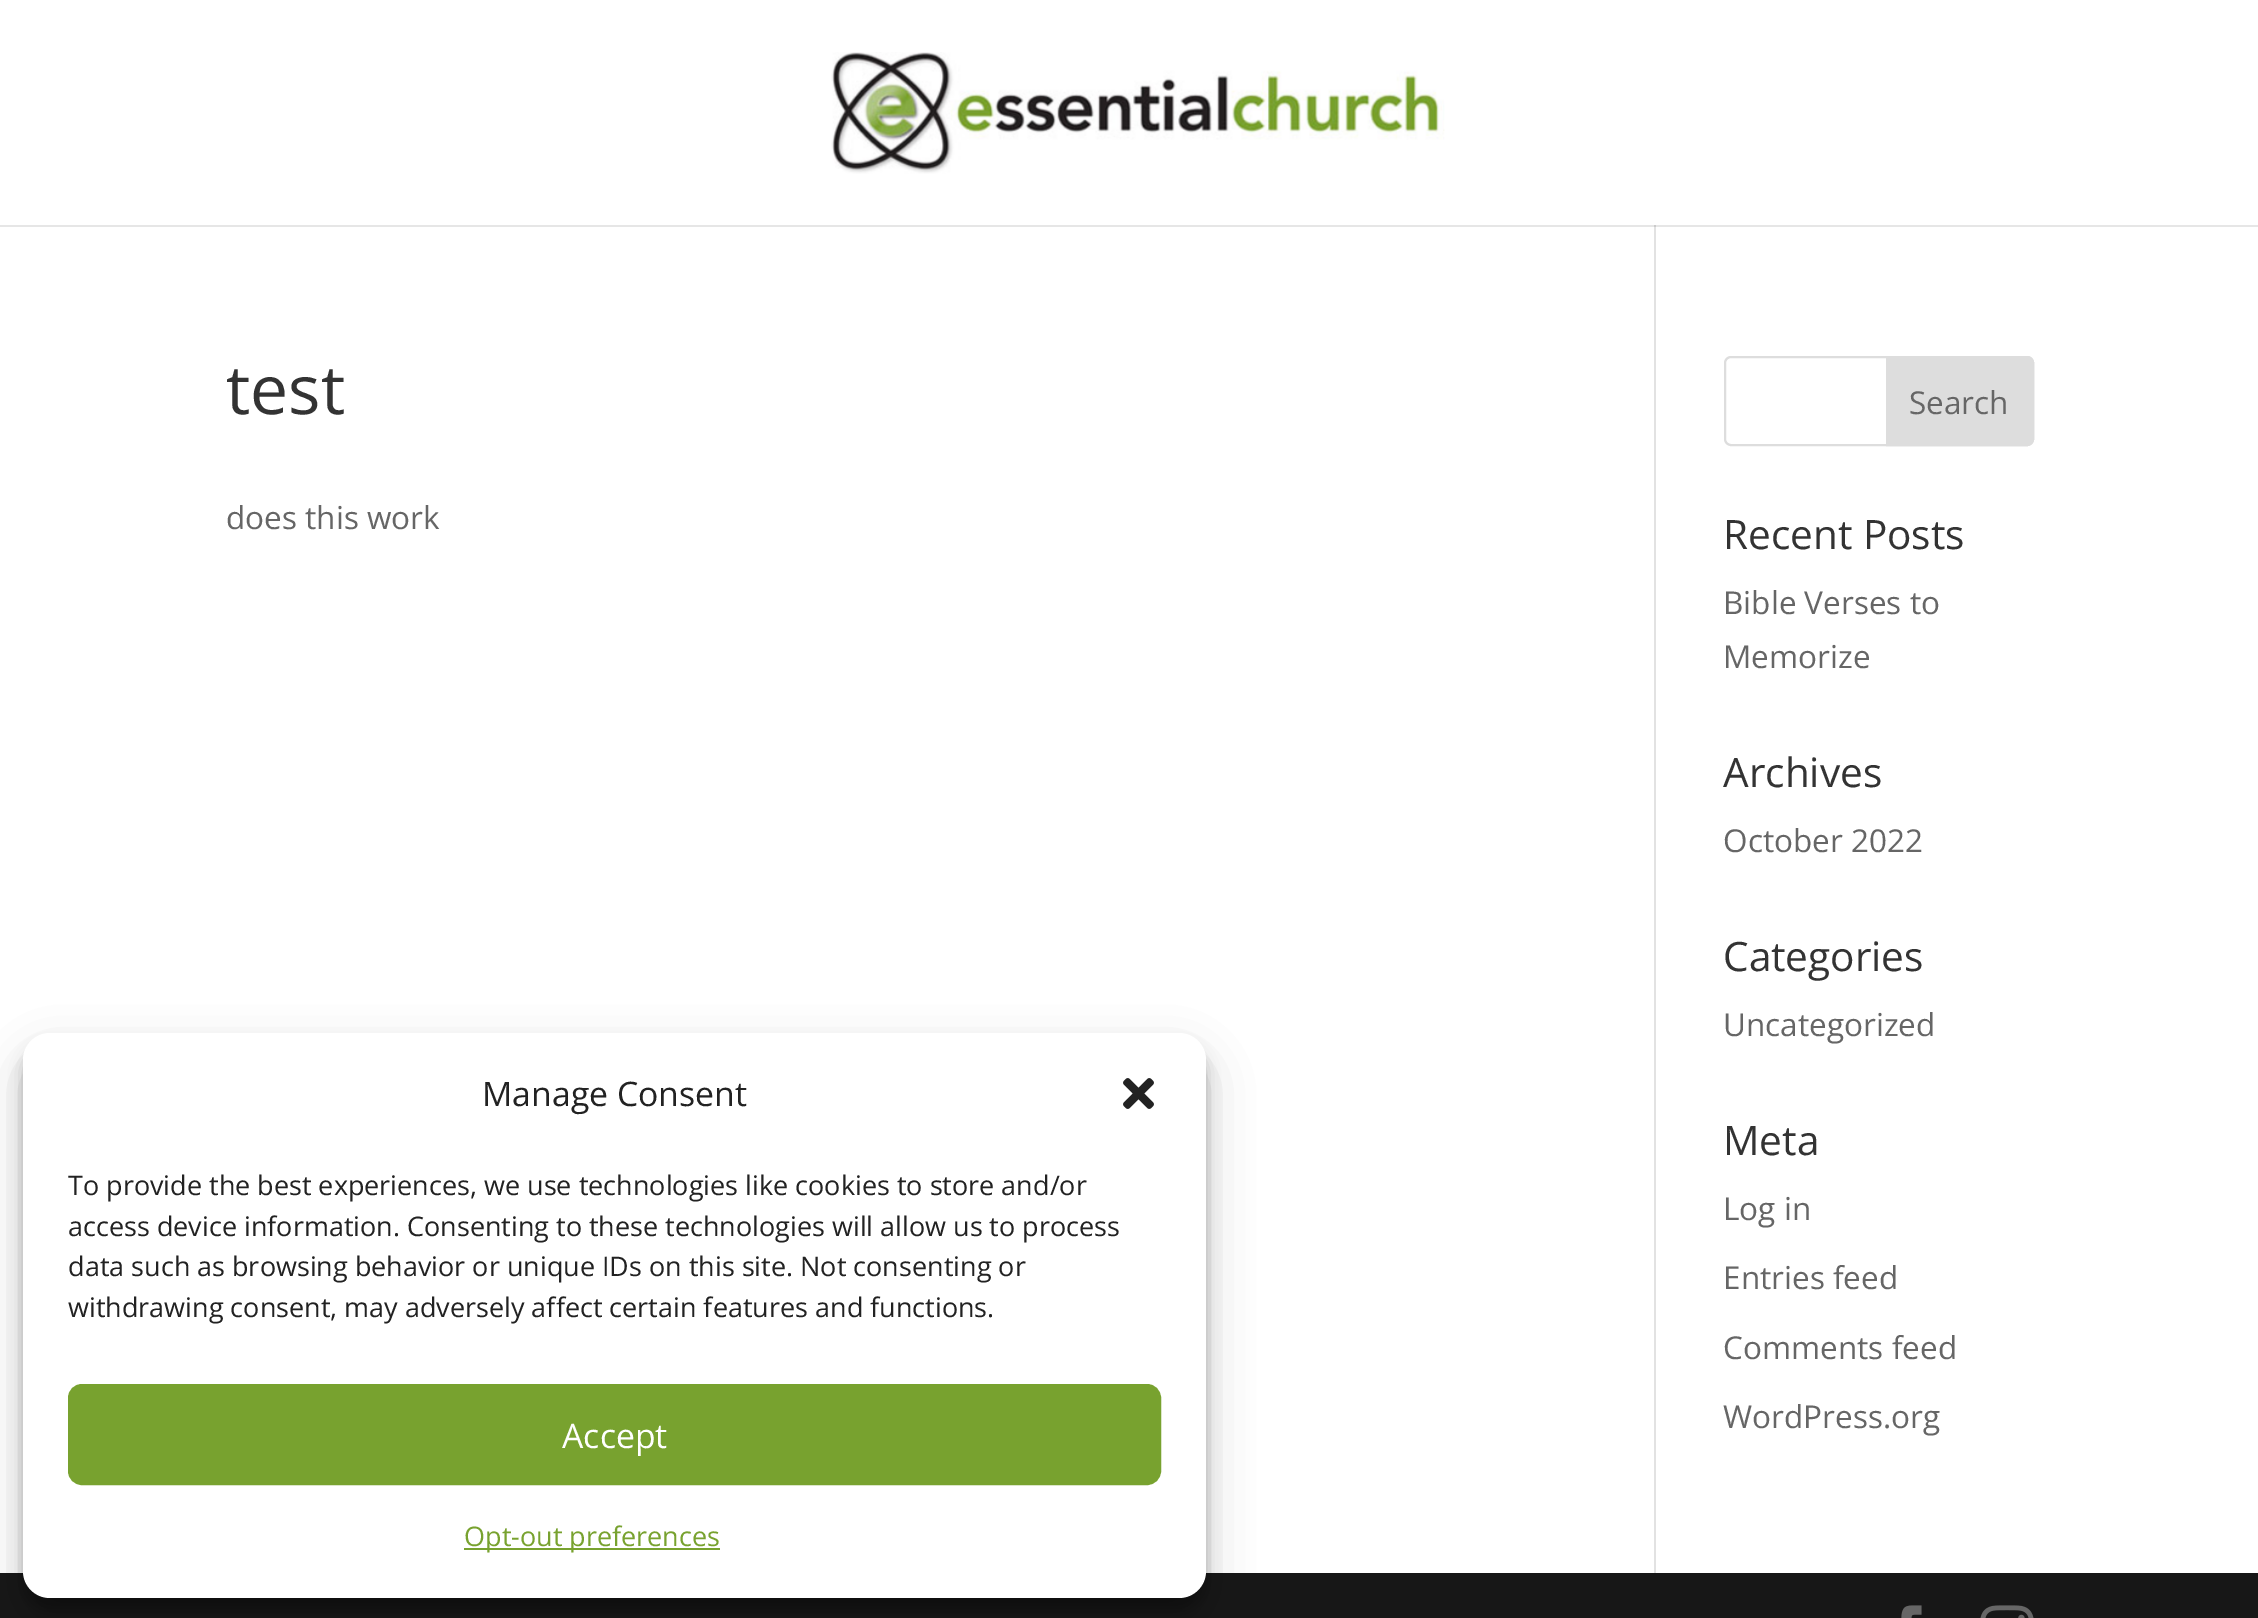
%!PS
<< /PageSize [2258 1618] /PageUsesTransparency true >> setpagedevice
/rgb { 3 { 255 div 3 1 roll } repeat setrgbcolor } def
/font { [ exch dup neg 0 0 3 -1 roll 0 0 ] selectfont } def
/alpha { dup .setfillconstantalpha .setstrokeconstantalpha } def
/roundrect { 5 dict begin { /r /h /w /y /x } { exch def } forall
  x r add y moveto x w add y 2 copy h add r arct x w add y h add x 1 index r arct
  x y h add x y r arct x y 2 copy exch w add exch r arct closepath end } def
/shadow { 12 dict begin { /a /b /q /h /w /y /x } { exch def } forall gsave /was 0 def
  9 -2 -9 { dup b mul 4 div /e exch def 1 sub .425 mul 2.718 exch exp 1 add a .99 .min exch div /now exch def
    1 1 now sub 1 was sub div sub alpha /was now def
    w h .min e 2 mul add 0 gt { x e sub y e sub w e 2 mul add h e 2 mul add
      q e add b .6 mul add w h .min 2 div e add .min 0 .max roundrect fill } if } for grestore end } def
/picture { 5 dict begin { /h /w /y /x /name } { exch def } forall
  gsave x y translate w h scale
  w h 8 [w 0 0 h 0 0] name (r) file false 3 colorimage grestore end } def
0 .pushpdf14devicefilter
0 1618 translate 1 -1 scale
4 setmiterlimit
255 255 255 rgb
0 0 2258 1618 rectfill
230 230 230 rgb
0 225 2258 2 rectfill
(img/1.rgb) 831 52 614 122 picture
226 226 226 rgb
1654 225 2 1348 rectfill
203 203 203 rgb
1654 225 2 2 rectfill
221 221 221 rgb
2 setlinewidth
1725 357 308 88 6 roundrect stroke
1887 357 moveto 2027 357 lineto 2030.5 357 2033 359.5 2033 363 curveto 2033 439 lineto 2033 442.5 2030.5 445 2027 445 curveto 1887 445 lineto closepath gsave fill grestore
stroke
23 23 23 rgb
0 1573 2258 45 rectfill
(img/2.rgb) 1901 1605 21 13 picture
(img/3.rgb) 1980 1605 54 13 picture
0 0 0 rgb
23 1046 1183 565 27 7 0.23 shadow
23 1055 1183 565 27 22.5 0.19 shadow
255 255 255 rgb
23 1033 1183 565 27 roundrect fill
(img/4.rgb) 1123 1078 31 31 picture
120 162 47 rgb
69 1385 1091 99 13 roundrect gsave fill grestore
stroke
464 1548 256 2 rectfill
/OpenSans-Regular 68 font
51 51 51 rgb
226 414 moveto (test) show
/OpenSans-Regular 31.5 font
102 102 102 rgb
226 529 moveto (does this work) show
1909 414 moveto (Search) show
/OpenSans-Regular 40.5 font
51 51 51 rgb
1723 549 moveto (Recent Posts) show
/OpenSans-Regular 31.5 font
102 102 102 rgb
1723 614 moveto (Bible Verses to) show
1723 668 moveto (Memorize) show
/OpenSans-Regular 40.5 font
51 51 51 rgb
1723 787 moveto (Archives) show
/OpenSans-Regular 31.5 font
102 102 102 rgb
1723 852 moveto (October 2022) show
/OpenSans-Regular 40.5 font
51 51 51 rgb
1723 971 moveto (Categories) show
/OpenSans-Regular 31.5 font
102 102 102 rgb
1723 1036 moveto (Uncategorized) show
/OpenSans-Regular 40.5 font
51 51 51 rgb
1723 1155 moveto (Meta) show
/OpenSans-Regular 31.5 font
102 102 102 rgb
[
  [(Log in) 1723 1220]
  [(Entries feed) 1723 1289]
  [(Comments feed) 1723 1359]
  [(WordPress.org) 1723 1428]
] { aload pop moveto show } forall
/OpenSans-Regular 33.75 font
34 34 34 rgb
482 1106 moveto (Manage Consent) show
gsave
68 1166 1093 173 rectclip
/OpenSans-Regular 27 font
68 1195 moveto (To provide the best experiences, we use technologies like cookies to store and/or) show
grestore
/OpenSans-Regular 27 font
[
  [(access device information. Consenting to these technologies will allow us to process) 68 1236]
  [(data such as browsing behavior or unique IDs on this site. Not consenting or) 68 1276]
  [(withdrawing consent, may adversely affect certain features and functions.) 68 1317]
] { aload pop moveto show } forall
/OpenSans-Regular 33.75 font
255 255 255 rgb
562 1448 moveto (Accept) show
/OpenSans-Regular 27 font
120 162 47 rgb
464 1546 moveto (Opt-out preferences) show
.poppdf14devicefilter showpage
